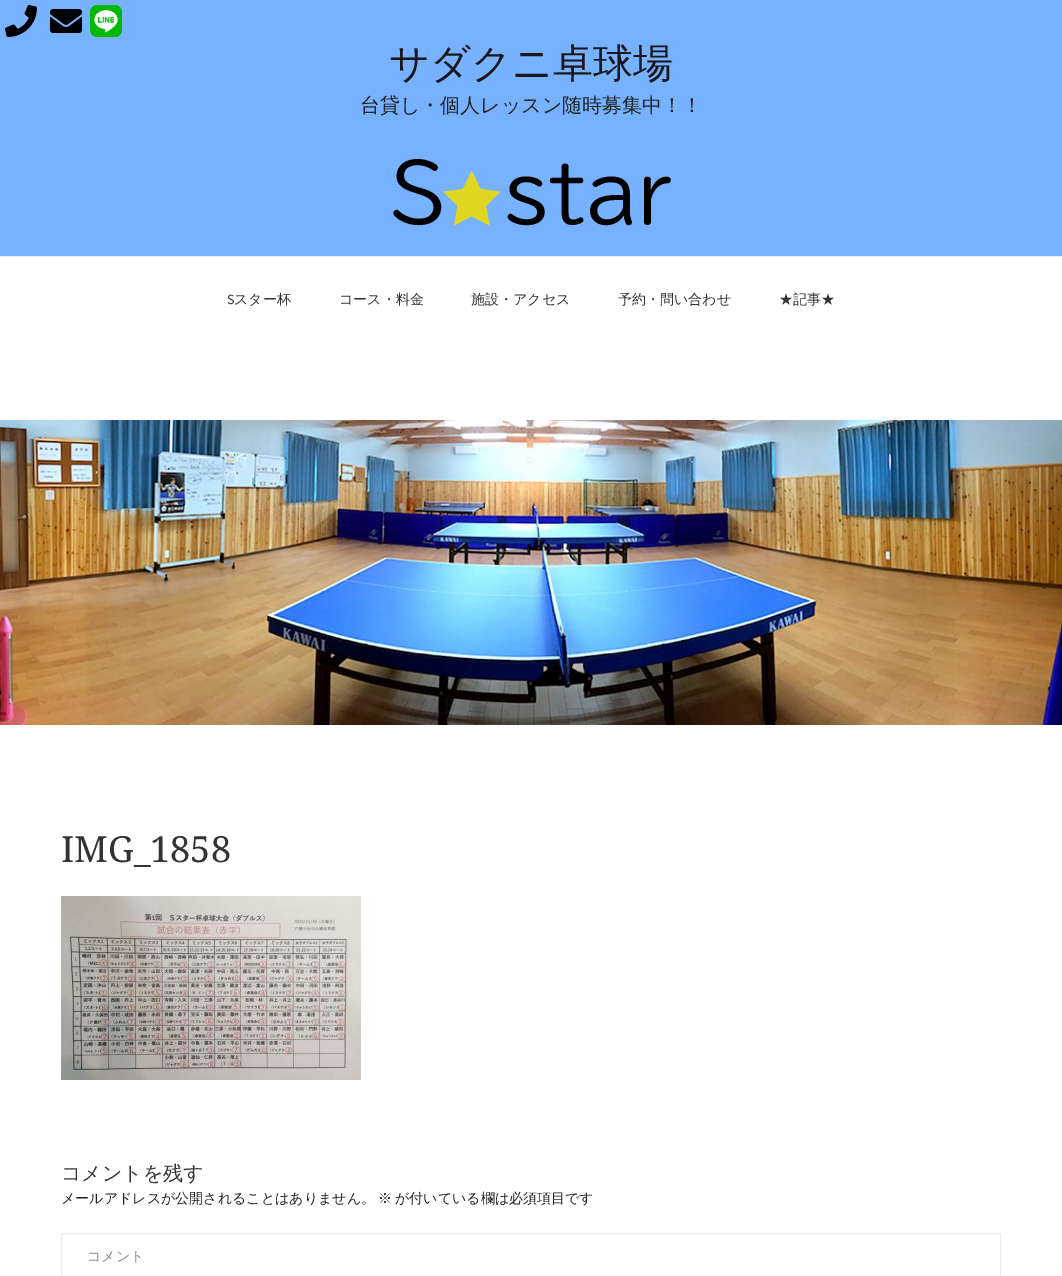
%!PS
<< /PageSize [1062 1276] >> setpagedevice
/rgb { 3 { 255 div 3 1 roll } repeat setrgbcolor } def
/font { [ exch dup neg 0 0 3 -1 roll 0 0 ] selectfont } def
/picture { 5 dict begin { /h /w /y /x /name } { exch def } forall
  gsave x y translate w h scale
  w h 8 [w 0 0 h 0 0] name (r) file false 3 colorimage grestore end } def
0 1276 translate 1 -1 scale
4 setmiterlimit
255 255 255 rgb
0 0 1062 1276 rectfill
118 178 255 rgb
0 0 1062 256 rectfill
(img/1.rgb) 5 5 32 32 picture
(img/2.rgb) 50 9 32 24 picture
(img/3.rgb) 90 5 32 32 picture
235 235 235 rgb
0 256 1062 1 rectfill
(img/4.rgb) 393 159 278 67 picture
(img/5.rgb) 0 420 1062 305 picture
(img/6.rgb) 61 896 300 184 picture
61.5 1233.5 939 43 rectstroke
/WenQuanYiZenHei-Medium 40 font
26 23 28 rgb
389 77 moveto (サダクニ卓球場) show
/WenQuanYiZenHei-Medium 20 font
34 34 34 rgb
360 112 moveto (台貸し・個人レッスン随時募集中！！) show
/SourceSansPro-Regular 14 font
51 51 51 rgb
227 304 moveto (S) show
/WenQuanYiZenHei-Medium 14 font
[
  [(スター杯) 234 304]
  [(コース・料金) 339 304]
  [(施設・アクセス) 471 304]
  [(予約・問い合わせ) 618 304]
  [(★記事★) 779 304]
] { aload pop moveto show } forall
/DroidSerif-Regular 36 font
61 862 moveto (IMG_1858) show
/WenQuanYiZenHei-Medium 20 font
61 1180 moveto (コメントを残す) show
/WenQuanYiZenHei-Medium 14 font
34 34 34 rgb
[
  [(メールアドレスが公開されることはありません。) 61 1203]
  [(※) 378 1203]
  [(が付いている欄は必須項目です) 395 1203]
] { aload pop moveto show } forall
137 137 137 rgb
87 1261 moveto (コメント) show
showpage
